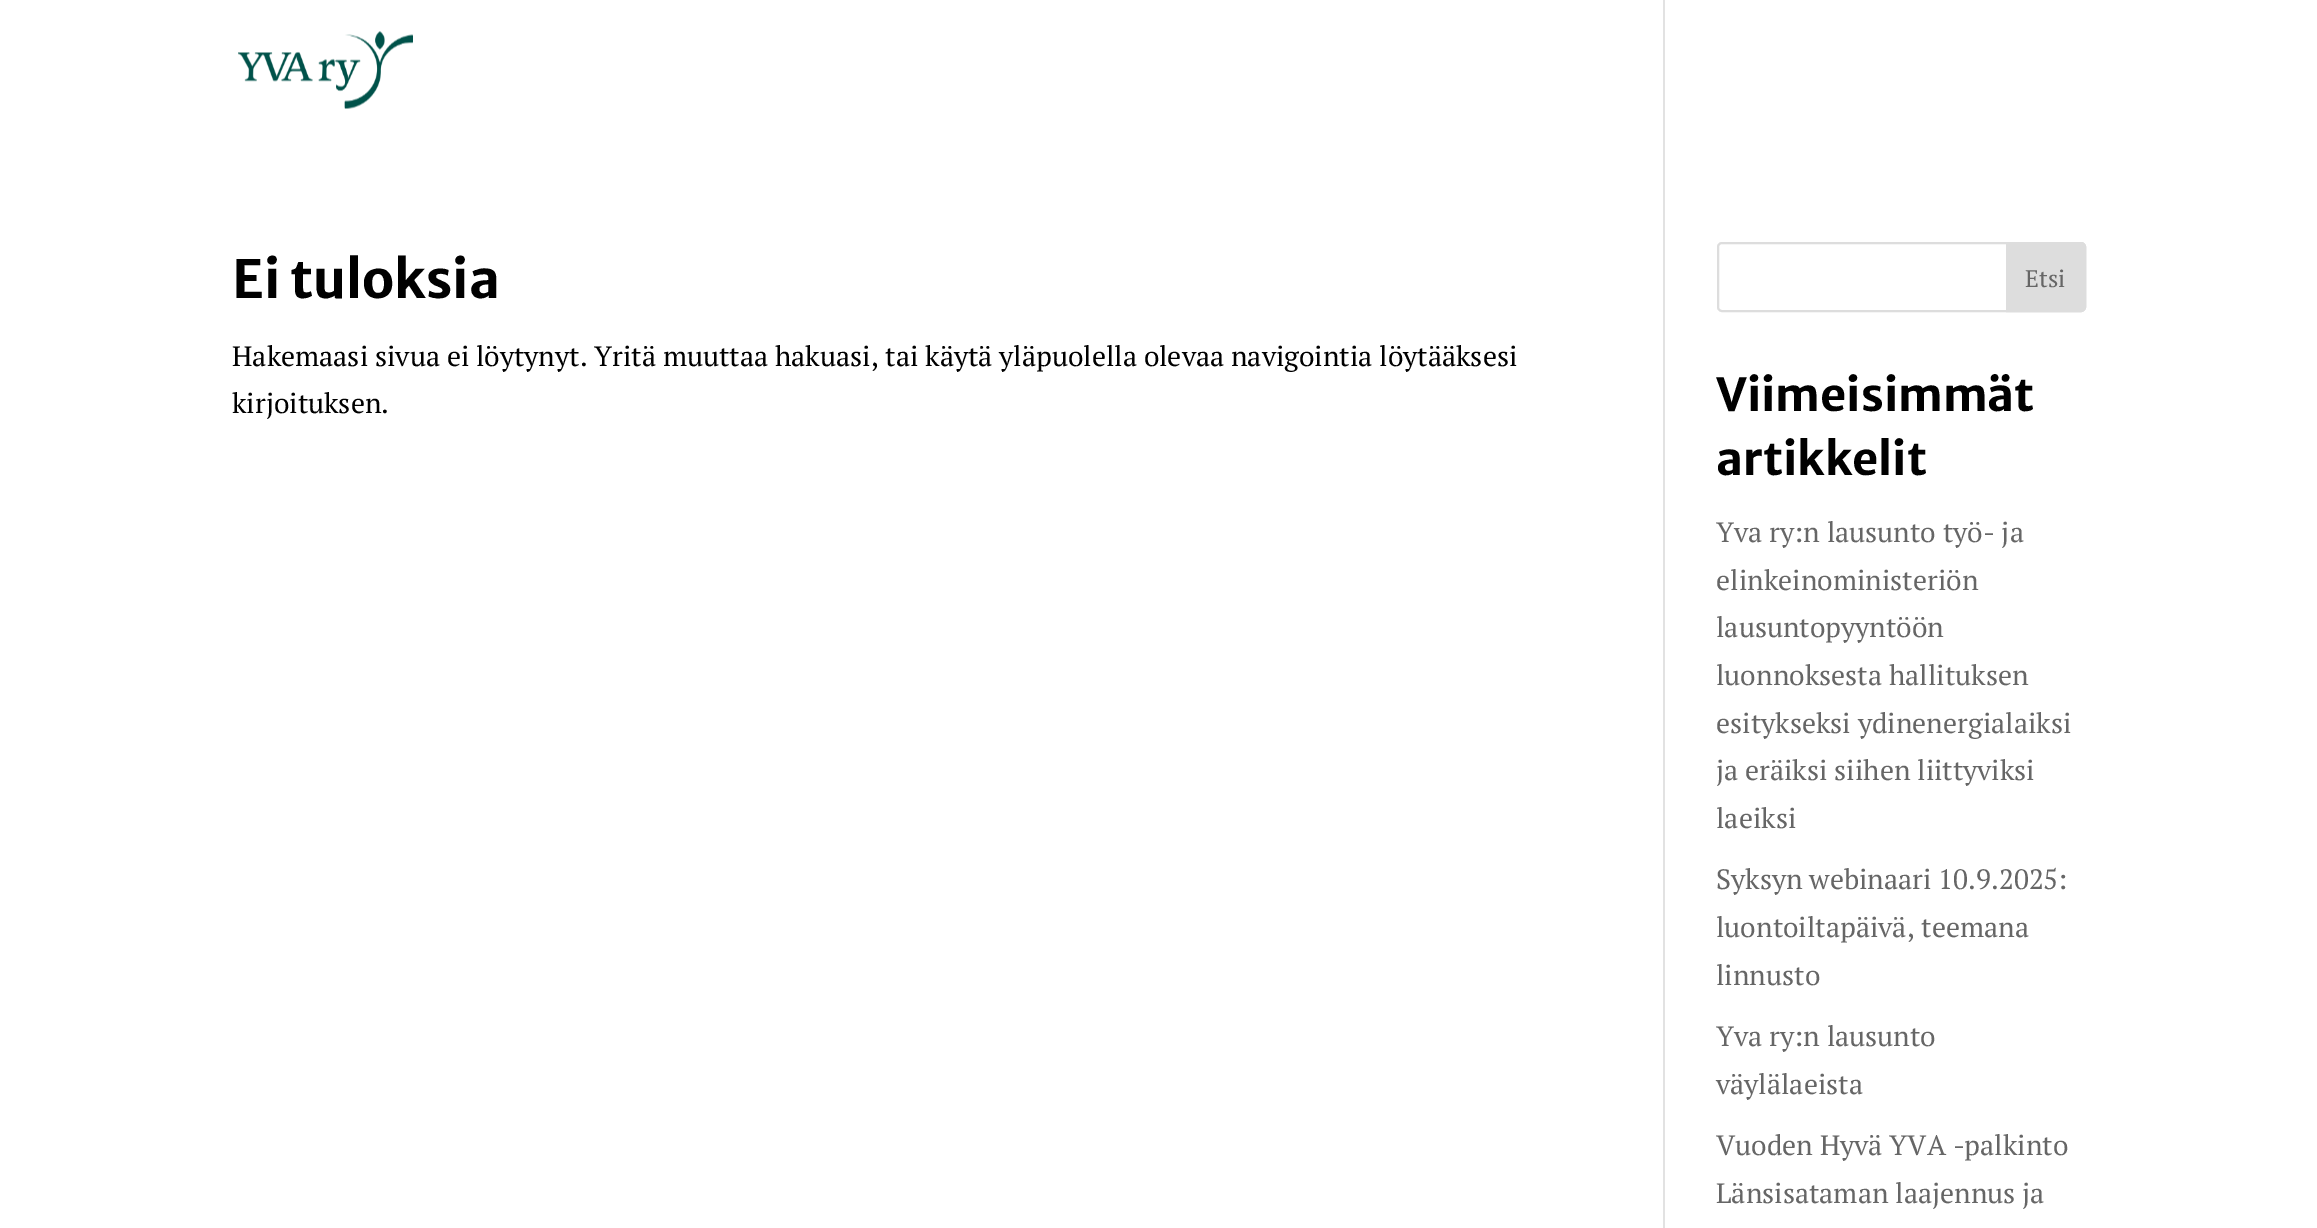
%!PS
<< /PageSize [2317 1228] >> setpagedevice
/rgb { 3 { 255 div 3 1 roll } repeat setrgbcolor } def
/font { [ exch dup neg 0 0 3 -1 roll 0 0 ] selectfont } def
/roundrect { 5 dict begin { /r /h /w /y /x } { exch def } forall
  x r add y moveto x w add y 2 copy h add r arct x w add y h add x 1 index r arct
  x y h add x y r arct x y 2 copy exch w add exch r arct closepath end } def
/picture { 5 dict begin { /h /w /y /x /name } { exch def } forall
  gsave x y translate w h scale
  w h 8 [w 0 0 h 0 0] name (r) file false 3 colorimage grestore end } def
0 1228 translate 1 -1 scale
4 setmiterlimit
255 255 255 rgb
0 0 2317 1228 rectfill
(img/1.rgb) 238 31 175 78 picture
226 226 226 rgb
1663 0 2 1228 rectfill
221 221 221 rgb
2 setlinewidth
1718 243 367 68 4 roundrect stroke
2007 243 moveto 2081 243 lineto 2083 243 2085 245 2085 247 curveto 2085 307 lineto 2085 309 2083 311 2081 311 curveto 2007 311 lineto closepath gsave fill grestore
stroke
/MerriweatherSans-Bold 52.5 font
0 0 0 rgb
232 298 moveto (Ei tuloksia) show
/PTSerif-Regular 28 font
232 366 moveto (Hakemaasi sivua ei löytynyt. Yritä muuttaa hakuasi, tai käytä yläpuolella olevaa navigointia löytääksesi) show
232 413 moveto (kirjoituksen.) show
/PTSerif-Regular 24 font
102 102 102 rgb
2025 287 moveto (Etsi) show
/MerriweatherSans-Bold 45.5 font
0 0 0 rgb
1716 411 moveto (Viimeisimmät) show
1716 475 moveto (artikkelit) show
/PTSerif-Regular 28 font
102 102 102 rgb
[
  [(Yva ry:n lausunto työ- ja) 1716 542]
  [(elinkeinoministeriön) 1716 590]
  [(lausuntopyyntöön) 1716 637]
  [(luonnoksesta hallituksen) 1716 685]
  [(esitykseksi ydinenergialaiksi) 1716 733]
  [(ja eräiksi siihen liittyviksi) 1716 780]
  [(laeiksi) 1716 828]
  [(Syksyn webinaari 10.9.2025:) 1716 889]
  [(luontoiltapäivä, teemana) 1716 937]
  [(linnusto) 1716 985]
  [(Yva ry:n lausunto) 1716 1046]
  [(väylälaeista) 1716 1094]
  [(Vuoden Hyvä YVA -palkinto) 1716 1155]
  [(Länsisataman laajennus ja) 1716 1203]
] { aload pop moveto show } forall
showpage
